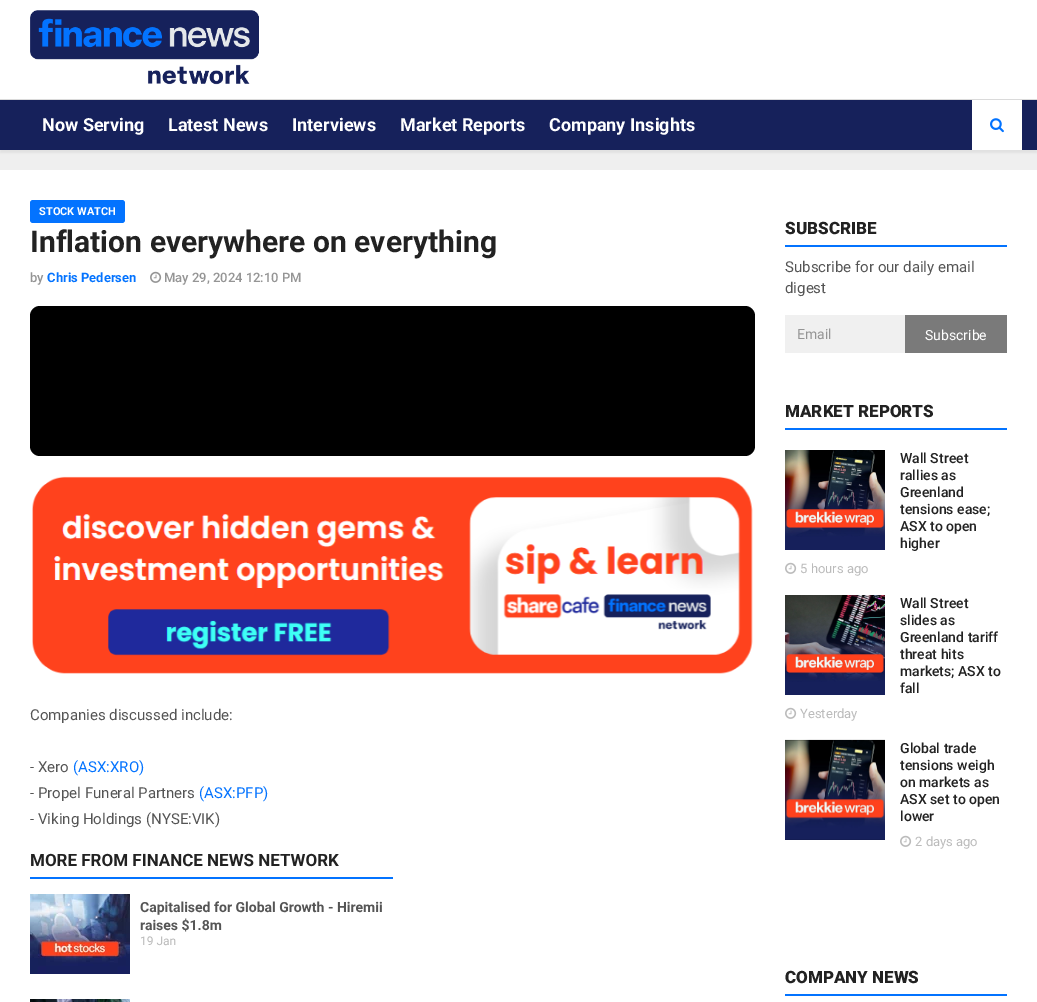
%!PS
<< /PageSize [1037 1002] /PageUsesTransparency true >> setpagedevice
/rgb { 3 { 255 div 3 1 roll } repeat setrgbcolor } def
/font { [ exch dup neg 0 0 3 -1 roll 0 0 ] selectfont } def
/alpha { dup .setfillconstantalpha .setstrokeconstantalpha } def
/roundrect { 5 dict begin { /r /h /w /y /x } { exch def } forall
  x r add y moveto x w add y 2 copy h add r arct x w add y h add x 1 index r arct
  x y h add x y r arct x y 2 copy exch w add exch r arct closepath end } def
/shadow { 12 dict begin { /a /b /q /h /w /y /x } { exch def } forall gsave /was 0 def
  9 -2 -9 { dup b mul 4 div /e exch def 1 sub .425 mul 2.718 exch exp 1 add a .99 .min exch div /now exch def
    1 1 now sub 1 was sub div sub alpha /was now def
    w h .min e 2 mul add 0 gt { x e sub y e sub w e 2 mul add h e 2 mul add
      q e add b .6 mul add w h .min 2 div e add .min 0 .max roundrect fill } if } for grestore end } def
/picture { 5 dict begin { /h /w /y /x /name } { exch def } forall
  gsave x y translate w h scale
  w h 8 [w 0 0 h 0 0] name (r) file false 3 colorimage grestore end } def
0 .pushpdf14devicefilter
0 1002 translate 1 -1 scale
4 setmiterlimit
239 239 239 rgb
0 0 1037 1002 rectfill
255 255 255 rgb
0 0 1037 99 rectfill
218 218 218 rgb
0 99 1037 1 rectfill
(img/1.rgb) 30 10 229 75 picture
0 0 0 rgb
0 103 1037 50 0 1 0.05 shadow
22 33 91 rgb
0 100 1037 50 rectfill
255 255 255 rgb
972 100 50 50 rectfill
(img/2.rgb) 990 118 14 15 picture
0 170 1037 832 rectfill
3 115 255 rgb
30 200 95 23 3 roundrect fill
(img/3.rgb) 150 271 12 12 picture
0 0 0 rgb
30 306 725 150 10 roundrect fill
(img/4.rgb) 32 476 721 198 picture
(img/5.rgb) 30 853 363 149 picture
[
  [785 245 222 2 3 115 255]
  [785 315 120 38 240 240 240]
  [905 315 102 38 122 122 122]
  [785 428 222 2 3 115 255]
] { aload pop rgb rectfill } forall
(img/6.rgb) 785 450 100 100 picture
(img/7.rgb) 785 562 12 12 picture
(img/8.rgb) 785 595 100 100 picture
(img/7.rgb) 785 707 12 12 picture
(img/9.rgb) 785 739 100 101 picture
(img/7.rgb) 900 835 12 12 picture
785 994 222 2 rectfill
/Roboto-Bold 18 font
255 255 255 rgb
[
  [(Now Serving) 42 131]
  [(Latest News) 168 131]
  [(Interviews) 292 131]
  [(Market Reports) 400 131]
  [(Company Insights) 549 131]
] { aload pop moveto show } forall
/Roboto-Bold 11 font
39 215 moveto (STOCK WATCH) show
/Roboto-Bold 30 font
34 34 34 rgb
30 252 moveto (Inflation everywhere on everything) show
/Roboto-Medium 13 font
149 149 149 rgb
30 282 moveto (by) show
/Roboto-Bold 13 font
3 115 255 rgb
47 282 moveto (Chris Pedersen) show
/Roboto-Medium 13 font
149 149 149 rgb
164 282 moveto (May 29, 2024 12:10 PM) show
/Roboto-Regular 15 font
85 85 85 rgb
30 720 moveto (Companies discussed include:) show
30 772 moveto (- Xero) show
3 115 255 rgb
73 772 moveto (\(ASX:XRO\)) show
85 85 85 rgb
30 798 moveto (- Propel Funeral Partners) show
3 115 255 rgb
199 798 moveto (\(ASX:PFP\)) show
85 85 85 rgb
30 824 moveto (- Viking Holdings \(NYSE:VIK\)) show
/Roboto-Black 17 font
34 34 34 rgb
785 234 moveto (SUBSCRIBE) show
/Roboto-Regular 15 font
85 85 85 rgb
785 272 moveto (Subscribe for our daily email) show
785 293 moveto (digest) show
/Roboto-Regular 14 font
149 149 149 rgb
797 339 moveto (Email) show
255 255 255 rgb
925 340 moveto (Subscribe) show
/Roboto-Black 17 font
34 34 34 rgb
785 417 moveto (MARKET REPORTS) show
/Roboto-Medium 14 font
[
  [(Wall Street) 900 463]
  [(rallies as) 900 480]
  [(Greenland) 900 497]
  [(tensions ease;) 900 514]
  [(ASX to open) 900 531]
  [(higher) 900 548]
] { aload pop moveto show } forall
/Roboto-Regular 13 font
187 187 187 rgb
800 573 moveto (5 hours ago) show
/Roboto-Medium 14 font
34 34 34 rgb
[
  [(Wall Street) 900 608]
  [(slides as) 900 625]
  [(Greenland tariff) 900 642]
  [(threat hits) 900 659]
  [(markets; ASX to) 900 676]
  [(fall) 900 693]
] { aload pop moveto show } forall
/Roboto-Regular 13 font
187 187 187 rgb
800 718 moveto (Yesterday) show
/Roboto-Medium 14 font
34 34 34 rgb
[
  [(Global trade) 900 753]
  [(tensions weigh) 900 770]
  [(on markets as) 900 787]
  [(ASX set to open) 900 804]
  [(lower) 900 821]
] { aload pop moveto show } forall
/Roboto-Regular 13 font
187 187 187 rgb
915 846 moveto (2 days ago) show
/Roboto-Black 17 font
34 34 34 rgb
785 983 moveto (COMPANY NEWS) show
.poppdf14devicefilter showpage
